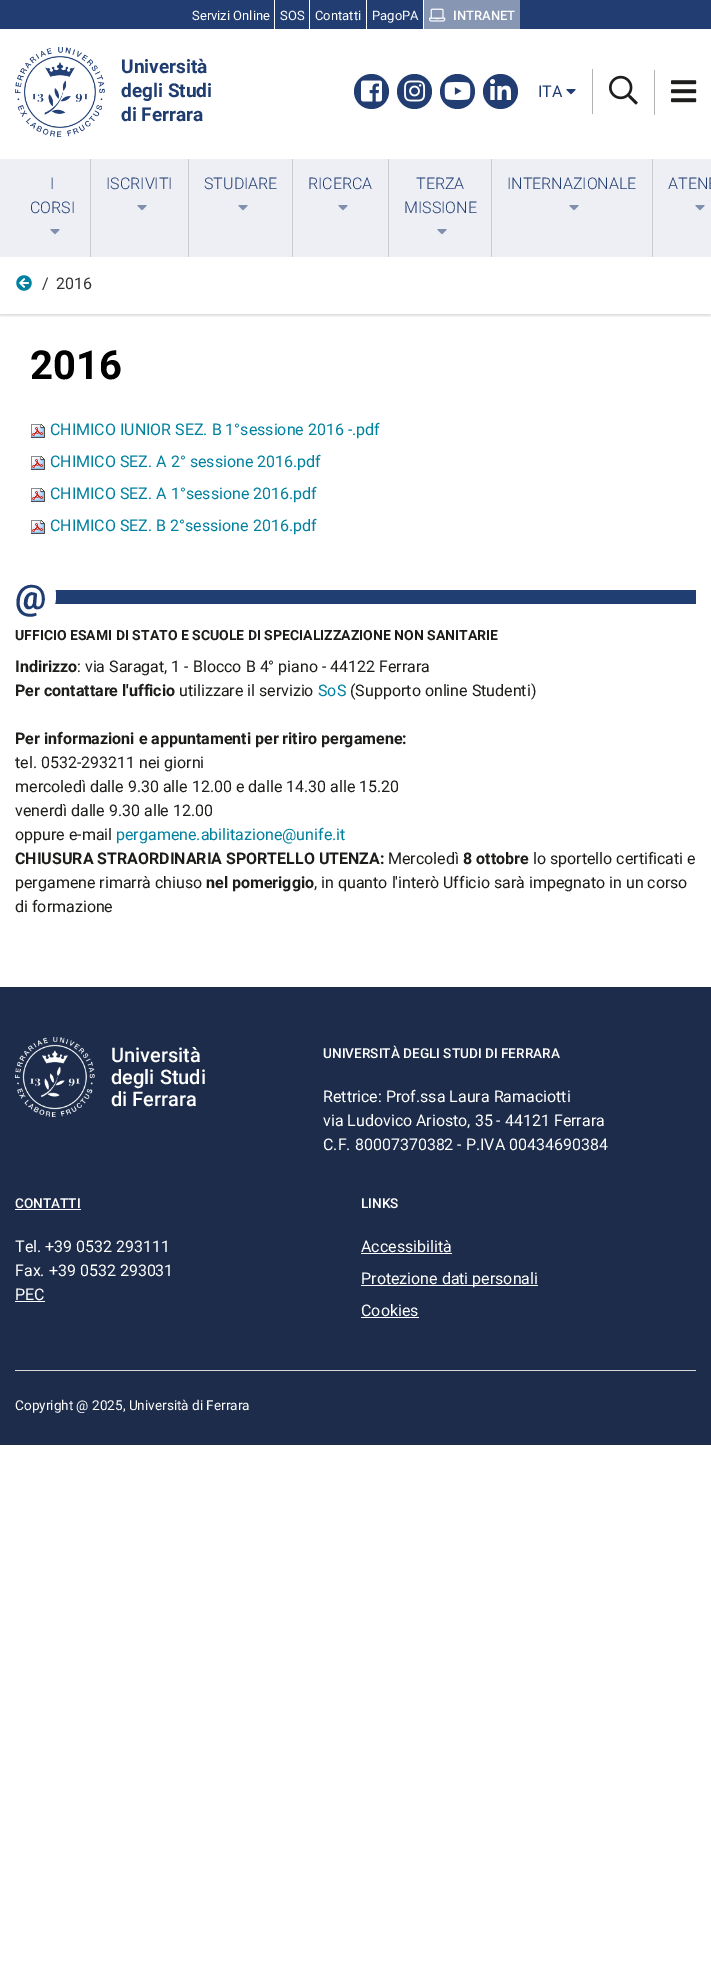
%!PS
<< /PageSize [711 1982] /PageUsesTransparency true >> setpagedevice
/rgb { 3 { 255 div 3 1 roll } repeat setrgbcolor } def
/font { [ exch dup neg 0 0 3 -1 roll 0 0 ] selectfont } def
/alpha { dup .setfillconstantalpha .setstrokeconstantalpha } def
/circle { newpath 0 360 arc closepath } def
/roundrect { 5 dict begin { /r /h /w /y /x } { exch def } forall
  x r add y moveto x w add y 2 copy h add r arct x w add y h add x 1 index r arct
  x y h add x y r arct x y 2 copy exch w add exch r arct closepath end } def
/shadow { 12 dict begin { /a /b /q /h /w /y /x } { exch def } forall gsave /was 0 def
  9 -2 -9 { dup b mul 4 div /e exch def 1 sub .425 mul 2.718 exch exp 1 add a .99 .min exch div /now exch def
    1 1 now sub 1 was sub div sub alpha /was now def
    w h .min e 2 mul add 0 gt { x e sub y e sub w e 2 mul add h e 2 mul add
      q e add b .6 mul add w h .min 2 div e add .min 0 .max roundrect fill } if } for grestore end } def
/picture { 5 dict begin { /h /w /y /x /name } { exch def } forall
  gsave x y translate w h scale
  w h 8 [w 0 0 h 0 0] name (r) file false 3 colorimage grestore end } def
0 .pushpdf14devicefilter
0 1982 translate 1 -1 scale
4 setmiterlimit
255 255 255 rgb
0 0 711 1982 rectfill
[
  [0 0 711 29 33 61 114]
  [274 0 1 29 255 255 255]
  [309 0 1 29 255 255 255]
  [366 0 1 29 255 255 255]
  [423 0 1 29 255 255 255]
  [424 0 96 29 135 150 179]
] { aload pop rgb rectfill } forall
(img/1.rgb) 429 8 17 14 picture
(img/2.rgb) 15 47 90 90 picture
33 61 114 rgb
371.5 91.5 17.5 circle fill
(img/3.rgb) 361 80 21 22 picture
414.5 91.5 17.5 circle fill
(img/4.rgb) 404 80 22 22 picture
457.5 91.5 17.5 circle fill
(img/5.rgb) 444 82 27 18 picture
500.5 91.5 17.5 circle fill
(img/6.rgb) 490 79 21 21 picture
(img/7.rgb) 566 89 10 6 picture
179 179 179 rgb
592 69 1 45 rectfill
(img/8.rgb) 609 75 29 30 picture
654 70 1 45 rectfill
(img/9.rgb) 671 80 26 23 picture
gsave
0 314 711 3 rectclip
0 0 0 rgb
0 259 711 57 0 1 0.13 shadow
grestore
237 239 244 rgb
0 159 711 98 rectfill
200 206 205 rgb
90 159 1 98 rectfill
(img/10.rgb) 50 229 10 6 picture
188 159 1 98 rectfill
(img/10.rgb) 137 205 10 6 picture
292 159 1 98 rectfill
(img/10.rgb) 238 205 10 6 picture
388 159 1 98 rectfill
(img/10.rgb) 338 205 10 6 picture
491 159 1 98 rectfill
(img/10.rgb) 437 229 10 6 picture
652 159 1 98 rectfill
(img/10.rgb) 569 205 10 6 picture
(img/10.rgb) 695 205 10 6 picture
(img/11.rgb) 16 275 16 16 picture
(img/12.rgb) 31 424 14 14 picture
(img/12.rgb) 31 456 14 14 picture
(img/12.rgb) 31 488 14 14 picture
(img/12.rgb) 31 520 14 14 picture
32 62 114 rgb
55 590 641 14 rectfill
255 255 255 rgb
15 568 moveto 36 568 lineto 47 568 56 580 56 596 curveto 56 611 47 623 36 623 curveto 15 623 lineto closepath fill
28 44 74 rgb
0 987 711 458 rectfill
(img/13.rgb) 15 1037 80 80 picture
[
  [15 1209 66 1 255 255 255]
  [15 1301 30 1 255 255 255]
  [361 1253 91 1 255 255 255]
  [361 1285 177 1 255 255 255]
  [361 1317 58 1 255 255 255]
  [15 1370 681 1 216 216 216]
] { aload pop rgb rectfill } forall
/Roboto-Regular 13 font
255 255 255 rgb
[
  [(Servizi Online) 192 20]
  [(SOS) 280 20]
  [(Contatti) 315 20]
  [(PagoPA) 372 20]
] { aload pop moveto show } forall
/Roboto-Medium 13 font
453 20 moveto (INTRANET) show
/Roboto-Bold 19 font
32 61 113 rgb
[
  [(Università) 121 73]
  [(degli Studi) 121 97]
  [(di Ferrara) 121 121]
] { aload pop moveto show } forall
/Roboto-Regular 16 font
538 97 moveto (ITA) show
/Roboto-Light 16 font
[
  [(I) 50 189]
  [(CORSI) 30 213]
  [(ISCRIVITI) 106 189]
  [(STUDIARE) 204 189]
  [(RICERCA) 308 189]
  [(TERZA) 416 189]
  [(MISSIONE) 404 213]
  [(INTERNAZIONALE) 507 189]
  [(ATENE) 668 189]
] { aload pop moveto show } forall
/Roboto-Regular 16 font
51 51 51 rgb
42 289 moveto (/) show
56 289 moveto (2016) show
/Roboto-Bold 40 font
0 0 0 rgb
30 379 moveto (2016) show
/Roboto-Regular 16 font
0 129 159 rgb
[
  [(CHIMICO IUNIOR SEZ. B 1°sessione 2016 -.pdf) 50 435]
  [(CHIMICO SEZ. A 2° sessione 2016.pdf) 50 467]
  [(CHIMICO SEZ. A 1°sessione 2016.pdf) 50 499]
  [(CHIMICO SEZ. B 2°sessione 2016.pdf) 50 531]
] { aload pop moveto show } forall
/Roboto-Bold 35 font
32 61 113 rgb
15 609 moveto (@) show
/Roboto-Bold 14 font
29 29 27 rgb
15 640 moveto (UFFICIO ESAMI DI STATO E SCUOLE DI SPECIALIZZAZIONE NON SANITARIE) show
/Roboto-Bold 16 font
15 672 moveto (Indirizzo) show
/Roboto-Regular 16 font
77 672 moveto (: via Saragat, 1 - Blocco B 4° piano - 44122 Ferrara) show
/Roboto-Bold 16 font
15 696 moveto (Per contattare l'ufficio) show
/Roboto-Regular 16 font
179 696 moveto (utilizzare il servizio) show
0 129 159 rgb
318 696 moveto (SoS) show
29 29 27 rgb
350 696 moveto (\(Supporto online Studenti\)) show
/Roboto-Bold 16 font
15 744 moveto (Per informazioni e appuntamenti per ritiro pergamene:) show
/Roboto-Regular 16 font
[
  [(tel. 0532-293211 nei giorni) 15 768]
  [(mercoledì dalle 9.30 alle 12.00 e dalle 14.30 alle 15.20) 15 792]
  [(venerdì dalle 9.30 alle 12.00) 15 816]
  [(oppure e-mail) 15 840]
] { aload pop moveto show } forall
0 129 159 rgb
116 840 moveto (pergamene.abilitazione@unife.it) show
/Roboto-Bold 16 font
29 29 27 rgb
15 864 moveto (CHIUSURA STRAORDINARIA SPORTELLO UTENZA:) show
/Roboto-Regular 16 font
388 864 moveto (Mercoledì) show
/Roboto-Bold 16 font
463 864 moveto (8 ottobre) show
/Roboto-Regular 16 font
533 864 moveto (lo sportello certificati e) show
15 888 moveto (pergamene rimarrà chiuso) show
/Roboto-Bold 16 font
206 888 moveto (nel pomeriggio) show
/Roboto-Regular 16 font
314 888 moveto (, in quanto l'interò Ufficio sarà impegnato in un corso) show
15 912 moveto (di formazione) show
/Roboto-Medium 20 font
255 255 255 rgb
[
  [(Università) 111 1062]
  [(degli Studi) 111 1084]
  [(di Ferrara) 111 1106]
] { aload pop moveto show } forall
/Roboto-Medium 13.6 font
323 1058 moveto (UNIVERSITÀ DEGLI STUDI DI FERRARA) show
/Roboto-Regular 16 font
[
  [(Rettrice: Prof.ssa Laura Ramaciotti) 323 1102]
  [(via Ludovico Ariosto, 35 - 44121 Ferrara) 323 1126]
  [(C.F. 80007370382 - P.IVA 00434690384) 323 1150]
] { aload pop moveto show } forall
/Roboto-Medium 13.6 font
15 1208 moveto (CONTATTI) show
/Roboto-Regular 16 font
[
  [(Tel. +39 0532 293111) 15 1252]
  [(Fax. +39 0532 293031) 15 1276]
  [(PEC) 15 1300]
] { aload pop moveto show } forall
/Roboto-Medium 13.6 font
361 1208 moveto (LINKS) show
/Roboto-Regular 16 font
[
  [(Accessibilità) 361 1252]
  [(Protezione dati personali) 361 1284]
  [(Cookies) 361 1316]
] { aload pop moveto show } forall
/Roboto-Regular 13.6 font
15 1410 moveto (Copyright @ 2025, Università di Ferrara) show
.poppdf14devicefilter showpage
